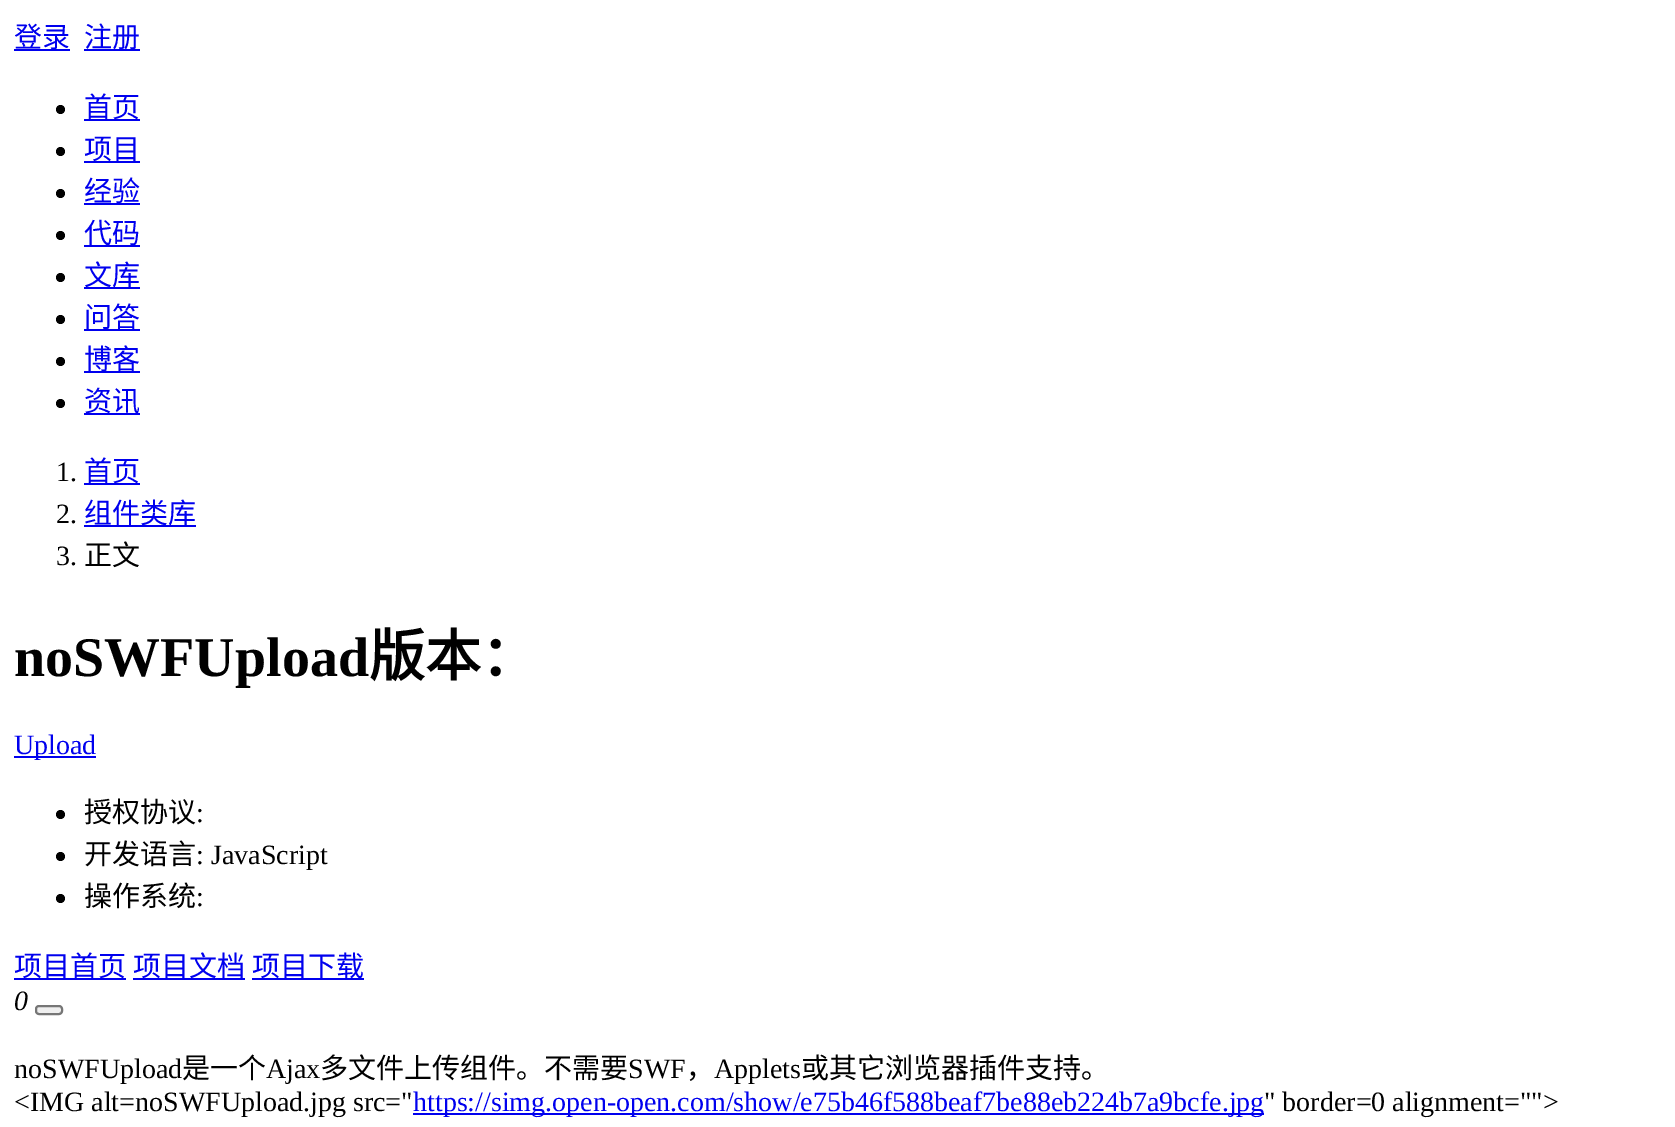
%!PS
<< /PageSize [1675 1127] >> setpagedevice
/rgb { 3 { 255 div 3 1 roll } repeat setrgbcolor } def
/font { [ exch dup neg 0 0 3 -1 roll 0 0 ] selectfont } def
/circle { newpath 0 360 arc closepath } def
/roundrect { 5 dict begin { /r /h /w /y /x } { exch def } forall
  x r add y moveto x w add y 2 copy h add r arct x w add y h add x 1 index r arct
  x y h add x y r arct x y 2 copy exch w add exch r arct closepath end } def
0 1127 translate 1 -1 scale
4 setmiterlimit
255 255 255 rgb
0 0 1675 1127 rectfill
0 0 238 rgb
14 49 56 2 rectfill
84 49 56 2 rectfill
0 0 0 rgb
60.5 109.5 4.5 circle fill
0 0 238 rgb
84 119 56 2 rectfill
0 0 0 rgb
60.5 151.5 4.5 circle fill
0 0 238 rgb
84 161 56 2 rectfill
0 0 0 rgb
60.5 193.5 4.5 circle fill
0 0 238 rgb
84 203 56 2 rectfill
0 0 0 rgb
60.5 235.5 4.5 circle fill
0 0 238 rgb
84 245 56 2 rectfill
0 0 0 rgb
60.5 277.5 4.5 circle fill
0 0 238 rgb
84 287 56 2 rectfill
0 0 0 rgb
60.5 319.5 4.5 circle fill
0 0 238 rgb
84 329 56 2 rectfill
0 0 0 rgb
60.5 361.5 4.5 circle fill
0 0 238 rgb
84 371 56 2 rectfill
0 0 0 rgb
60.5 403.5 4.5 circle fill
[
  [84 413 56 2 0 0 238]
  [84 483 56 2 0 0 238]
  [84 525 112 2 0 0 238]
  [14 756 82 2 0 0 238]
] { aload pop rgb rectfill } forall
0 0 0 rgb
60.5 814.5 4.5 circle fill
60.5 856.5 4.5 circle fill
60.5 898.5 4.5 circle fill
[
  [14 978 112 2 0 0 238]
  [133 978 112 2 0 0 238]
  [252 978 112 2 0 0 238]
] { aload pop rgb rectfill } forall
239 239 239 rgb
36 1006 26 8 3 roundrect gsave fill grestore
118 118 118 rgb
2 setlinewidth
stroke
0 0 238 rgb
413 1113 851 2 rectfill
/NotoSansCJKSC-Regular 28 font
[
  [(登录) 14 47]
  [(注册) 84 47]
  [(首页) 84 117]
  [(项目) 84 159]
  [(经验) 84 201]
  [(代码) 84 243]
  [(文库) 84 285]
  [(问答) 84 327]
  [(博客) 84 369]
  [(资讯) 84 411]
] { aload pop moveto show } forall
/LiberationSerif-Regular 28 font
0 0 0 rgb
56 481 moveto (1.) show
/NotoSansCJKSC-Regular 28 font
0 0 238 rgb
84 481 moveto (首页) show
/LiberationSerif-Regular 28 font
0 0 0 rgb
56 523 moveto (2.) show
/NotoSansCJKSC-Regular 28 font
0 0 238 rgb
84 523 moveto (组件类库) show
/LiberationSerif-Regular 28 font
0 0 0 rgb
56 565 moveto (3.) show
/NotoSansCJKSC-Regular 28 font
84 565 moveto (正文) show
/LiberationSerif-Bold 56 font
14 676 moveto (noSWFUpload) show
/NotoSansCJKSC-Bold 56 font
369 676 moveto (版本：) show
/LiberationSerif-Regular 28 font
0 0 238 rgb
14 754 moveto (Upload) show
/NotoSansCJKSC-Regular 28 font
0 0 0 rgb
84 822 moveto (授权协议) show
/LiberationSerif-Regular 28 font
196 822 moveto (:) show
/NotoSansCJKSC-Regular 28 font
84 864 moveto (开发语言) show
/LiberationSerif-Regular 28 font
196 864 moveto (: JavaScript) show
/NotoSansCJKSC-Regular 28 font
84 906 moveto (操作系统) show
/LiberationSerif-Regular 28 font
196 906 moveto (:) show
/NotoSansCJKSC-Regular 28 font
0 0 238 rgb
[
  [(项目首页) 14 976]
  [(项目文档) 133 976]
  [(项目下载) 252 976]
] { aload pop moveto show } forall
/LiberationSerif-Italic 28 font
0 0 0 rgb
14 1010 moveto (0) show
/LiberationSerif-Regular 28 font
14 1078 moveto (noSWFUpload) show
/NotoSansCJKSC-Regular 28 font
182 1078 moveto (是一个) show
/LiberationSerif-Regular 28 font
266 1078 moveto (Ajax) show
/NotoSansCJKSC-Regular 28 font
320 1078 moveto (多文件上传组件。不需要) show
/LiberationSerif-Regular 28 font
628 1078 moveto (SWF) show
/NotoSansCJKSC-Regular 28 font
686 1078 moveto (，) show
/LiberationSerif-Regular 28 font
714 1078 moveto (Applets) show
/NotoSansCJKSC-Regular 28 font
801 1078 moveto (或其它浏览器插件支持。) show
/LiberationSerif-Regular 28 font
14 1111 moveto (<IMG alt=noSWFUpload.jpg src=") show
0 0 238 rgb
413 1111 moveto (https://simg.open-open.com/show/e75b46f588beaf7be88eb224b7a9bcfe.jpg) show
0 0 0 rgb
1264 1111 moveto (" border=0 alignment="">) show
showpage
